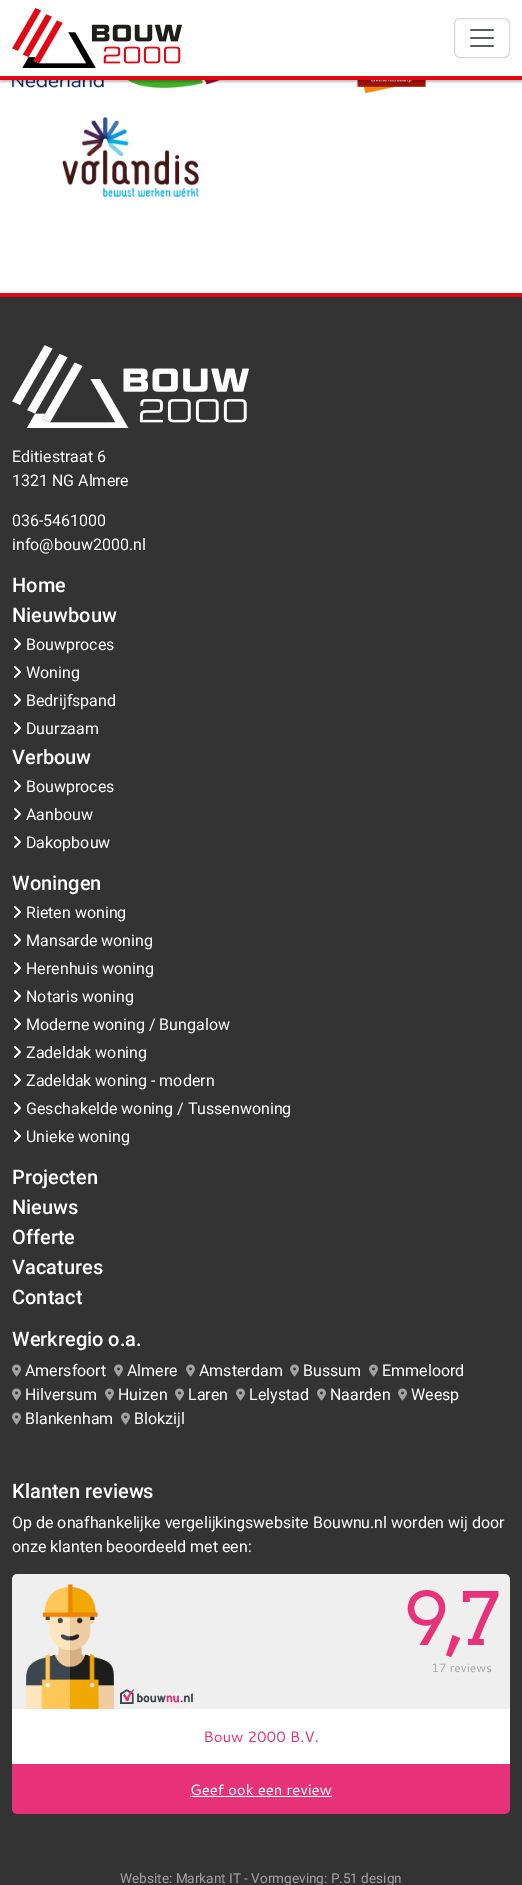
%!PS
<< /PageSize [522 1885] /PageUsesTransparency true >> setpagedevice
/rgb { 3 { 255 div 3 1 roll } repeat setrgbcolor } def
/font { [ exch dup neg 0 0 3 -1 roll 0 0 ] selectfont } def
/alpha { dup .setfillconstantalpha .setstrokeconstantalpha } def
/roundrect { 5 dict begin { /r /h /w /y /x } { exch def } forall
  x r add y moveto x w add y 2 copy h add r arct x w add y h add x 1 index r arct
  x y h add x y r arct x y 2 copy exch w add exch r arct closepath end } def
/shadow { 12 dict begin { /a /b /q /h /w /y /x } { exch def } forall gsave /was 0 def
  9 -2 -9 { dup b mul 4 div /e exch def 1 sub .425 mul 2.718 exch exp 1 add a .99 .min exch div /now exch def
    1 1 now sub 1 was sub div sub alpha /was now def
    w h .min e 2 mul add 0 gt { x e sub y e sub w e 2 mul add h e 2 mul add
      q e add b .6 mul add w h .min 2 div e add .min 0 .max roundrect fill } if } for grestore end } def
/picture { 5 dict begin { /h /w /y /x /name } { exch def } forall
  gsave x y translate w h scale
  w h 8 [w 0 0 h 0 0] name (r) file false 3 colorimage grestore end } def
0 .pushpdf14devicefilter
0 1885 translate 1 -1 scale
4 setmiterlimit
255 255 255 rgb
0 0 522 1885 rectfill
(img/3.rgb) 12 80 209 8 picture
(img/4.rgb) 357 80 72 13 picture
0 0 0 rgb
0 2 522 80 0 1 0.25 shadow
255 255 255 rgb
0 0 522 76 rectfill
(img/1.rgb) 12 8 170 60 picture
217 217 217 rgb
454.5 18.5 55 39 5.5 roundrect stroke
(img/2.rgb) 470 29 24 18 picture
227 6 19 rgb
0 76 522 4 rectfill
(img/5.rgb) 62 117 137 80 picture
51 51 51 rgb
0 297 522 1588 rectfill
227 6 19 rgb
0 293 522 4 rectfill
(img/6.rgb) 12 345 237 83 picture
(img/7.rgb) 14 638 7 12 picture
(img/7.rgb) 14 666 7 12 picture
(img/7.rgb) 14 694 7 12 picture
(img/7.rgb) 14 722 7 12 picture
(img/7.rgb) 14 780 7 12 picture
(img/7.rgb) 14 808 7 12 picture
(img/7.rgb) 14 836 7 12 picture
(img/7.rgb) 14 906 7 12 picture
(img/7.rgb) 14 934 7 12 picture
(img/7.rgb) 14 962 7 12 picture
(img/7.rgb) 14 990 7 12 picture
(img/7.rgb) 14 1018 7 12 picture
(img/7.rgb) 14 1046 7 12 picture
(img/7.rgb) 14 1074 7 12 picture
(img/7.rgb) 14 1102 7 12 picture
(img/7.rgb) 14 1130 7 12 picture
(img/8.rgb) 12 1364 9 13 picture
(img/8.rgb) 114 1364 9 13 picture
(img/8.rgb) 186 1364 9 13 picture
(img/8.rgb) 290 1364 9 13 picture
(img/8.rgb) 369 1364 9 13 picture
(img/8.rgb) 12 1388 9 13 picture
(img/8.rgb) 105 1388 9 13 picture
(img/8.rgb) 175 1388 9 13 picture
(img/8.rgb) 236 1388 9 13 picture
(img/8.rgb) 317 1388 9 13 picture
(img/8.rgb) 398 1388 9 13 picture
(img/8.rgb) 12 1412 9 13 picture
(img/8.rgb) 121 1412 9 13 picture
(img/9.rgb) 12 1574 498 240 picture
/Roboto-Regular 16 font
255 255 255 rgb
[
  [(Editiestraat 6) 12 462]
  [(1321 NG Almere) 12 486]
  [(036-5461000) 12 526]
  [(info@bouw2000.nl) 12 550]
] { aload pop moveto show } forall
/Roboto-Medium 20 font
12 592 moveto (Home) show
12 622 moveto (Nieuwbouw) show
/Roboto-Regular 16 font
[
  [(Bouwproces) 26 650]
  [(Woning) 26 678]
  [(Bedrijfspand) 26 706]
  [(Duurzaam) 26 734]
] { aload pop moveto show } forall
/Roboto-Medium 20 font
12 764 moveto (Verbouw) show
/Roboto-Regular 16 font
[
  [(Bouwproces) 26 792]
  [(Aanbouw) 26 820]
  [(Dakopbouw) 26 848]
] { aload pop moveto show } forall
/Roboto-Medium 20 font
12 890 moveto (Woningen) show
/Roboto-Regular 16 font
[
  [(Rieten woning) 26 918]
  [(Mansarde woning) 26 946]
  [(Herenhuis woning) 26 974]
  [(Notaris woning) 26 1002]
  [(Moderne woning / Bungalow) 26 1030]
  [(Zadeldak woning) 26 1058]
  [(Zadeldak woning - modern) 26 1086]
  [(Geschakelde woning / Tussenwoning) 26 1114]
  [(Unieke woning) 26 1142]
] { aload pop moveto show } forall
/Roboto-Medium 20 font
[
  [(Projecten) 12 1184]
  [(Nieuws) 12 1214]
  [(Offerte) 12 1244]
  [(Vacatures) 12 1274]
  [(Contact) 12 1304]
  [(Werkregio o.a.) 12 1346]
] { aload pop moveto show } forall
/Roboto-Regular 16 font
[
  [(Amersfoort) 25 1376]
  [(Almere) 127 1376]
  [(Amsterdam) 199 1376]
  [(Bussum) 303 1376]
  [(Emmeloord) 382 1376]
  [(Hilversum) 25 1400]
  [(Huizen) 118 1400]
  [(Laren) 188 1400]
  [(Lelystad) 249 1400]
  [(Naarden) 330 1400]
  [(Weesp) 411 1400]
  [(Blankenham) 25 1424]
  [(Blokzijl) 134 1424]
] { aload pop moveto show } forall
/Roboto-Medium 20 font
12 1498 moveto (Klanten reviews) show
/Roboto-Regular 16 font
12 1528 moveto (Op de onafhankelijke vergelijkingswebsite Bouwnu.nl worden wij door) show
12 1552 moveto (onze klanten beoordeeld met een:) show
/Roboto-Regular 13.6 font
161 161 161 rgb
120 1883 moveto (Website: Markant IT - Vormgeving: P.51 design) show
.poppdf14devicefilter showpage
